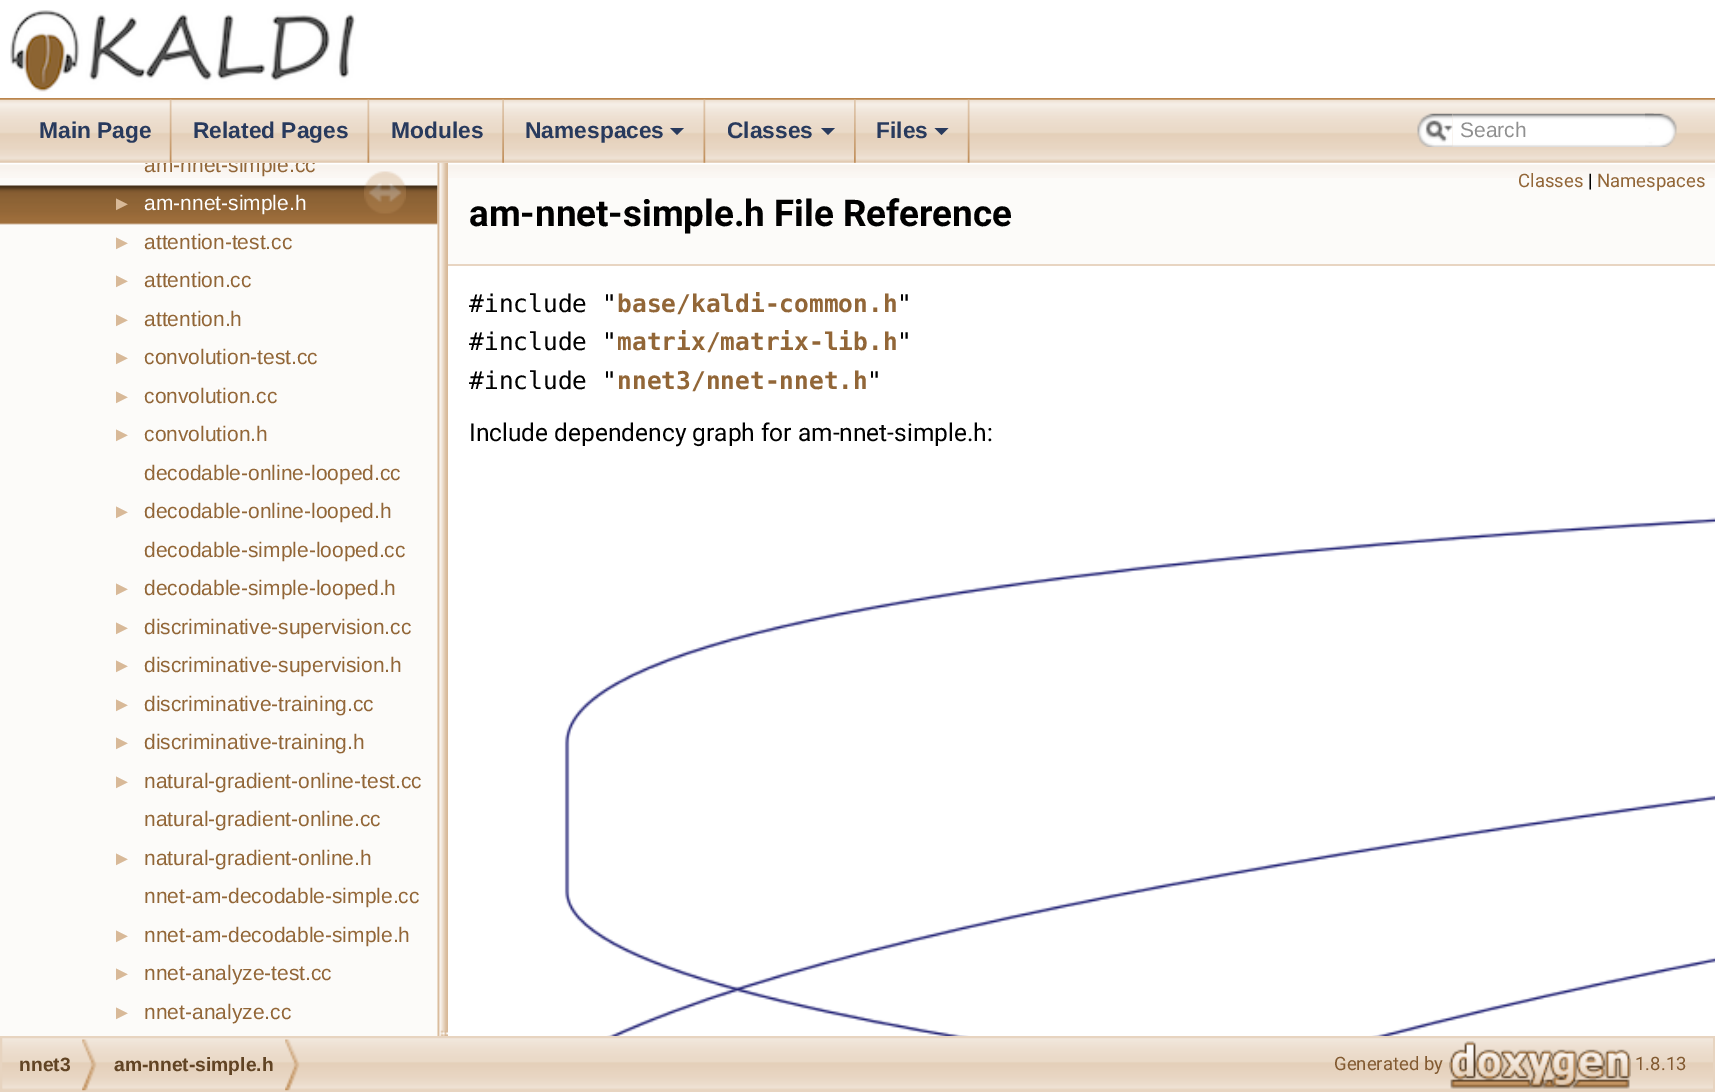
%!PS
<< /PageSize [1715 1092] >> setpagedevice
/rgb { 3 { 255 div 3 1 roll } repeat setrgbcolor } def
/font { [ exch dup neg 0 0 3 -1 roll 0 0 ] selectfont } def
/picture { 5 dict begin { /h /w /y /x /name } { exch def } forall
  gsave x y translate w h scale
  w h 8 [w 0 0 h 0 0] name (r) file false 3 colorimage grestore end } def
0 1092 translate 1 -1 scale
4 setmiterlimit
255 255 255 rgb
0 0 1715 1092 rectfill
187 133 76 rgb
0 98 1715 2 rectfill
(img/1.rgb) 10 10 346 82 picture
252 251 249 rgb
0 163 438 873 rectfill
(img/11.rgb) 0 163 438 15 picture
(img/12.rgb) 0 185 438 40 picture
(img/14.rgb) 437 162 11 874 picture
(img/2.rgb) 0 99 1715 64 picture
(img/3.rgb) 169 99 3 64 picture
(img/4.rgb) 367 99 3 64 picture
(img/5.rgb) 502 99 2 64 picture
(img/4.rgb) 703 99 3 64 picture
40 58 93 rgb
670 128 moveto 684 128 lineto 677 135 lineto closepath fill
(img/6.rgb) 854 99 2 64 picture
821 128 moveto 835 128 lineto 828 135 lineto closepath fill
(img/3.rgb) 967 99 3 64 picture
934.5 128 moveto 948.5 128 lineto 941.5 135 lineto closepath fill
(img/7.rgb) 1417 113 36 34 picture
(img/8.rgb) 1425 120 28 22 picture
(img/9.rgb) 1452 113 202 34 picture
(img/10.rgb) 1645 113 32 34 picture
(img/13.rgb) 364 171 42 43 picture
252 251 249 rgb
448 178 1267 86 rectfill
(img/15.rgb) 448 163 1267 15 picture
232 213 194 rgb
448 264 1267 2 rectfill
(img/16.rgb) 564 517 1151 519 picture
(img/17.rgb) 2 1038 1711 52 picture
231 212 192 rgb
2 setlinewidth
1 1037 1713 54 rectstroke
(img/18.rgb) 82 1039 15 52 picture
(img/19.rgb) 285 1039 15 52 picture
(img/20.rgb) 1449 1041 182 48 picture
/LiberationSans-Bold 22.75 font
40 58 93 rgb
[
  [(Main Page) 39 138]
  [(Related Pages) 193 138]
  [(Modules) 391 138]
  [(Namespaces) 525 138]
  [(Classes) 727 138]
  [(Files) 876 138]
] { aload pop moveto show } forall
/LiberationSans-Regular 21 font
144 144 144 rgb
1460 137 moveto (Search) show
gsave
0 163 438 873 rectclip
146 102 55 rgb
144 172 moveto (am-nnet-simple.cc) show
grestore
/LiberationSans-Regular 20 font
216 185 152 rgb
112 210 moveto (►) show
/LiberationSans-Regular 21 font
255 255 255 rgb
144 210 moveto (am-nnet-simple.h) show
/LiberationSans-Regular 20 font
216 185 152 rgb
112 249 moveto (►) show
/LiberationSans-Regular 21 font
146 102 55 rgb
144 249 moveto (attention-test.cc) show
/LiberationSans-Regular 20 font
216 185 152 rgb
112 287 moveto (►) show
/LiberationSans-Regular 21 font
146 102 55 rgb
144 287 moveto (attention.cc) show
/LiberationSans-Regular 20 font
216 185 152 rgb
112 326 moveto (►) show
/LiberationSans-Regular 21 font
146 102 55 rgb
144 326 moveto (attention.h) show
/LiberationSans-Regular 20 font
216 185 152 rgb
112 364 moveto (►) show
/LiberationSans-Regular 21 font
146 102 55 rgb
144 364 moveto (convolution-test.cc) show
/LiberationSans-Regular 20 font
216 185 152 rgb
112 403 moveto (►) show
/LiberationSans-Regular 21 font
146 102 55 rgb
144 403 moveto (convolution.cc) show
/LiberationSans-Regular 20 font
216 185 152 rgb
112 441 moveto (►) show
/LiberationSans-Regular 21 font
146 102 55 rgb
144 441 moveto (convolution.h) show
144 480 moveto (decodable-online-looped.cc) show
/LiberationSans-Regular 20 font
216 185 152 rgb
112 518 moveto (►) show
/LiberationSans-Regular 21 font
146 102 55 rgb
144 518 moveto (decodable-online-looped.h) show
144 557 moveto (decodable-simple-looped.cc) show
/LiberationSans-Regular 20 font
216 185 152 rgb
112 595 moveto (►) show
/LiberationSans-Regular 21 font
146 102 55 rgb
144 595 moveto (decodable-simple-looped.h) show
/LiberationSans-Regular 20 font
216 185 152 rgb
112 634 moveto (►) show
/LiberationSans-Regular 21 font
146 102 55 rgb
144 634 moveto (discriminative-supervision.cc) show
/LiberationSans-Regular 20 font
216 185 152 rgb
112 672 moveto (►) show
/LiberationSans-Regular 21 font
146 102 55 rgb
144 672 moveto (discriminative-supervision.h) show
/LiberationSans-Regular 20 font
216 185 152 rgb
112 711 moveto (►) show
/LiberationSans-Regular 21 font
146 102 55 rgb
144 711 moveto (discriminative-training.cc) show
/LiberationSans-Regular 20 font
216 185 152 rgb
112 749 moveto (►) show
/LiberationSans-Regular 21 font
146 102 55 rgb
144 749 moveto (discriminative-training.h) show
/LiberationSans-Regular 20 font
216 185 152 rgb
112 788 moveto (►) show
/LiberationSans-Regular 21 font
146 102 55 rgb
144 788 moveto (natural-gradient-online-test.cc) show
144 826 moveto (natural-gradient-online.cc) show
/LiberationSans-Regular 20 font
216 185 152 rgb
112 865 moveto (►) show
/LiberationSans-Regular 21 font
146 102 55 rgb
144 865 moveto (natural-gradient-online.h) show
144 903 moveto (nnet-am-decodable-simple.cc) show
/LiberationSans-Regular 20 font
216 185 152 rgb
112 942 moveto (►) show
/LiberationSans-Regular 21 font
146 102 55 rgb
144 942 moveto (nnet-am-decodable-simple.h) show
/LiberationSans-Regular 20 font
216 185 152 rgb
112 980 moveto (►) show
/LiberationSans-Regular 21 font
146 102 55 rgb
144 980 moveto (nnet-analyze-test.cc) show
/LiberationSans-Regular 20 font
216 185 152 rgb
112 1019 moveto (►) show
/LiberationSans-Regular 21 font
146 102 55 rgb
144 1019 moveto (nnet-analyze.cc) show
/Roboto-Regular 18.5 font
1518 187 moveto (Classes) show
0 0 0 rgb
1588 187 moveto (|) show
146 102 55 rgb
1597 187 moveto (Namespaces) show
/Roboto-Bold 36.75 font
0 0 0 rgb
469 226 moveto (am-nnet-simple.h File Reference) show
/DejaVuSansMono-Regular 24.5 font
469 312 moveto (#include ") show
/DejaVuSansMono-Bold 24.5 font
146 102 55 rgb
617 312 moveto (base/kaldi-common.h) show
/DejaVuSansMono-Regular 24.5 font
0 0 0 rgb
897 312 moveto (") show
469 350 moveto (#include ") show
/DejaVuSansMono-Bold 24.5 font
146 102 55 rgb
617 350 moveto (matrix/matrix-lib.h) show
/DejaVuSansMono-Regular 24.5 font
0 0 0 rgb
897 350 moveto (") show
469 389 moveto (#include ") show
/DejaVuSansMono-Bold 24.5 font
146 102 55 rgb
617 389 moveto (nnet3/nnet-nnet.h) show
/DejaVuSansMono-Regular 24.5 font
0 0 0 rgb
867 389 moveto (") show
/Roboto-Regular 24.5 font
469 441 moveto (Include dependency graph for am-nnet-simple.h:) show
/LiberationSans-Bold 19.25 font
97 68 36 rgb
19 1071 moveto (nnet3) show
114 1071 moveto (am-nnet-simple.h) show
/Roboto-Regular 18.5 font
130 90 49 rgb
1334 1070 moveto (Generated by) show
1635 1070 moveto (1.8.13) show
showpage
